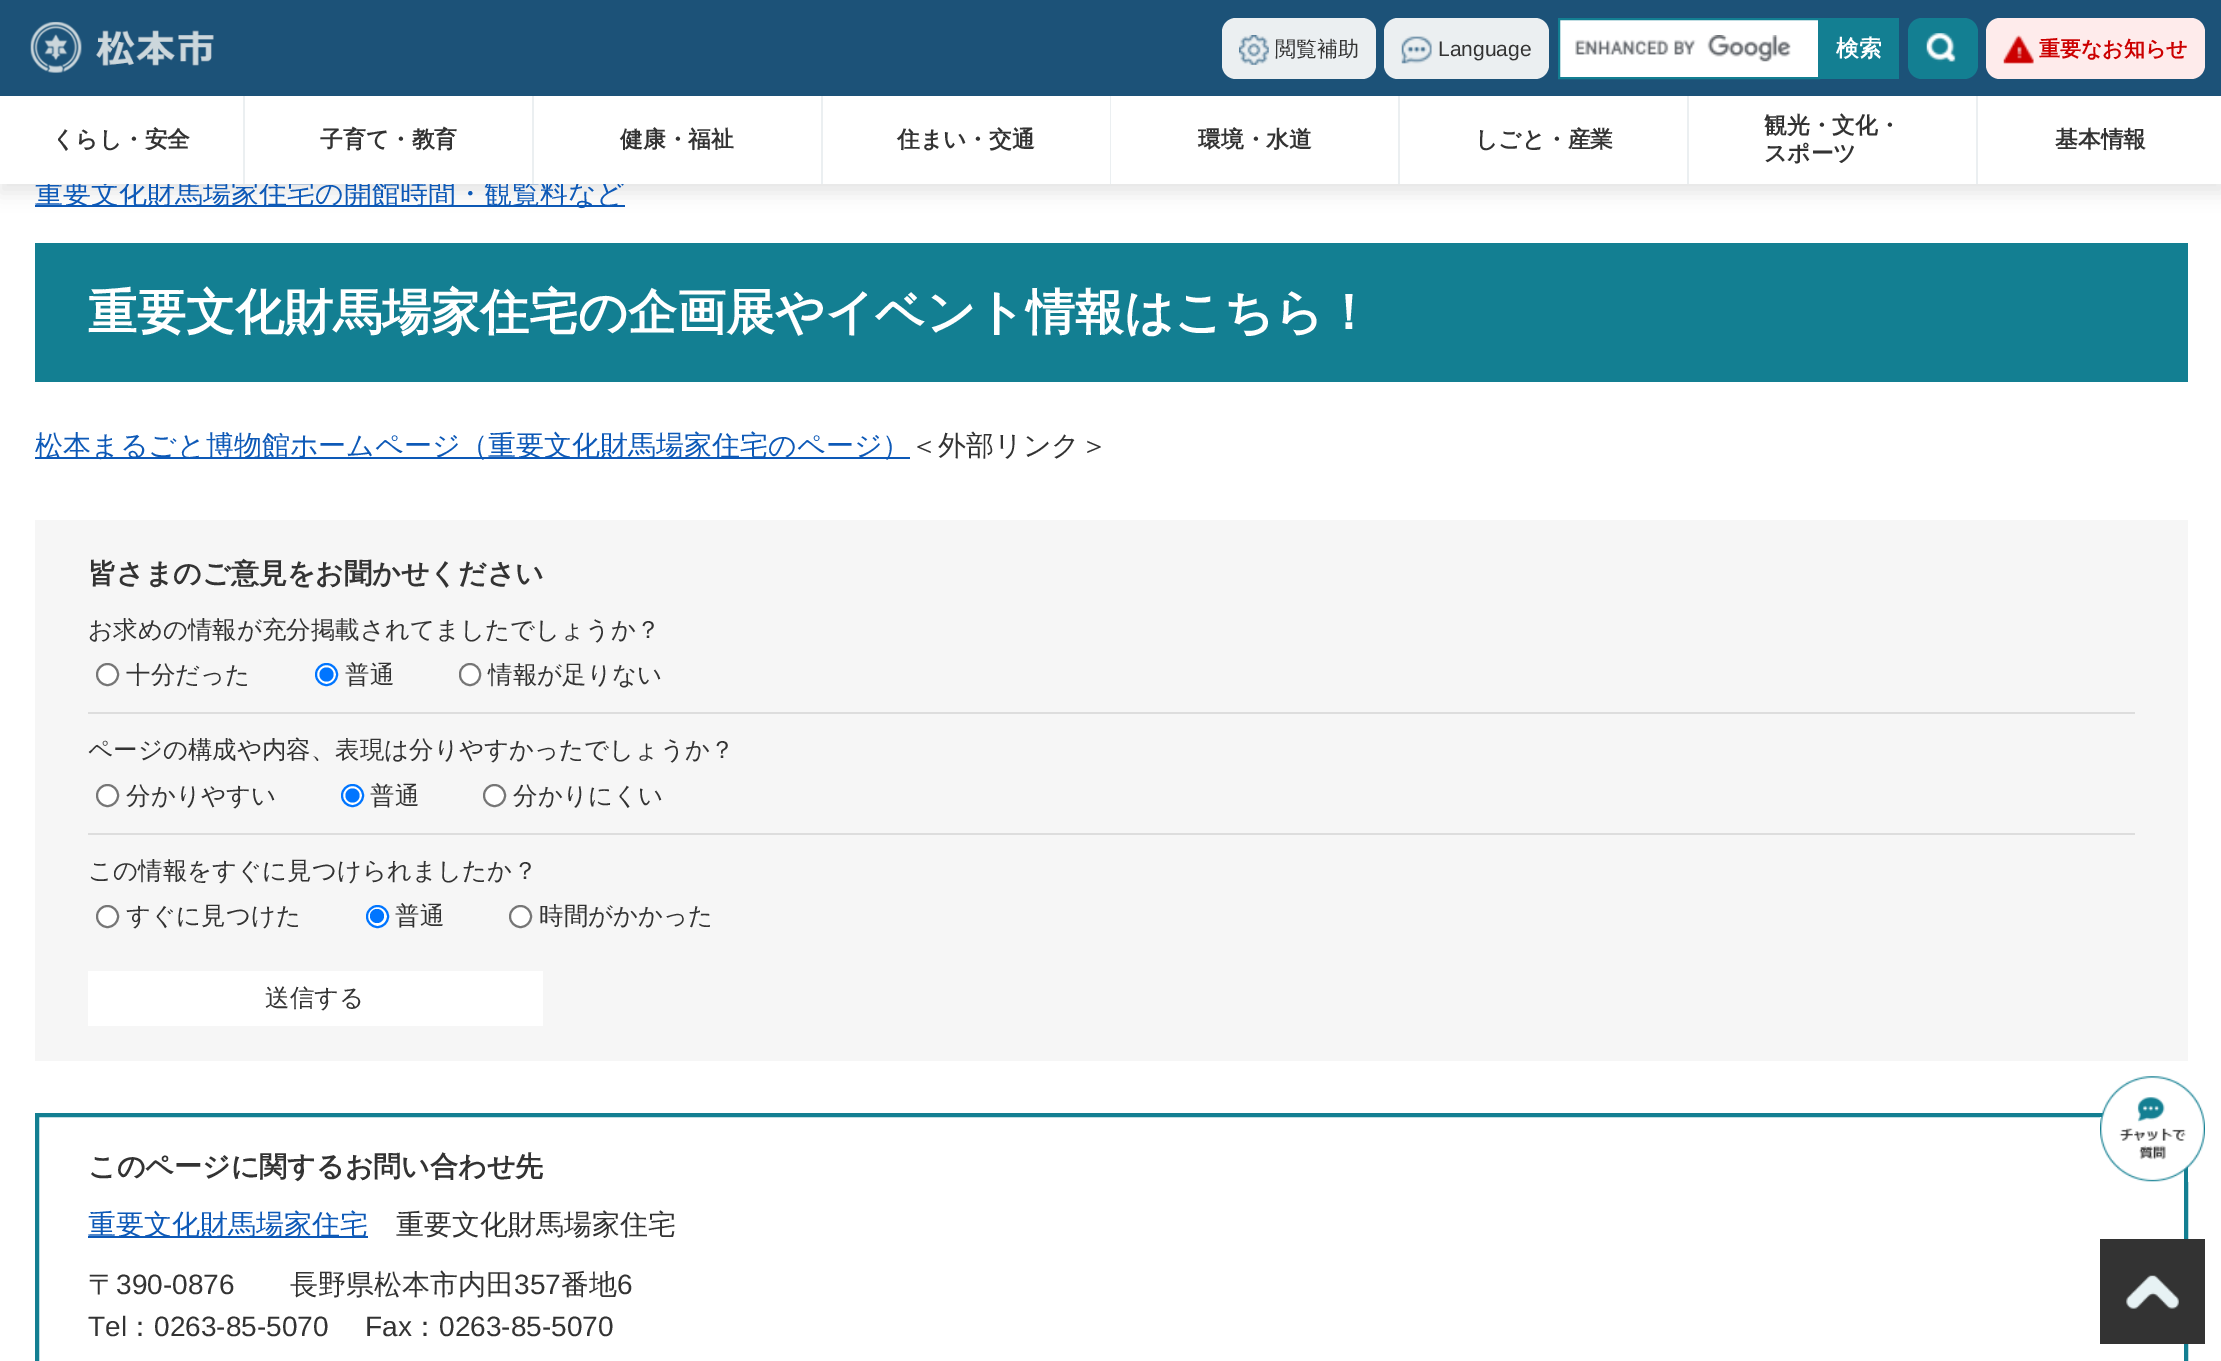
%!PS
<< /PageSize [2221 1361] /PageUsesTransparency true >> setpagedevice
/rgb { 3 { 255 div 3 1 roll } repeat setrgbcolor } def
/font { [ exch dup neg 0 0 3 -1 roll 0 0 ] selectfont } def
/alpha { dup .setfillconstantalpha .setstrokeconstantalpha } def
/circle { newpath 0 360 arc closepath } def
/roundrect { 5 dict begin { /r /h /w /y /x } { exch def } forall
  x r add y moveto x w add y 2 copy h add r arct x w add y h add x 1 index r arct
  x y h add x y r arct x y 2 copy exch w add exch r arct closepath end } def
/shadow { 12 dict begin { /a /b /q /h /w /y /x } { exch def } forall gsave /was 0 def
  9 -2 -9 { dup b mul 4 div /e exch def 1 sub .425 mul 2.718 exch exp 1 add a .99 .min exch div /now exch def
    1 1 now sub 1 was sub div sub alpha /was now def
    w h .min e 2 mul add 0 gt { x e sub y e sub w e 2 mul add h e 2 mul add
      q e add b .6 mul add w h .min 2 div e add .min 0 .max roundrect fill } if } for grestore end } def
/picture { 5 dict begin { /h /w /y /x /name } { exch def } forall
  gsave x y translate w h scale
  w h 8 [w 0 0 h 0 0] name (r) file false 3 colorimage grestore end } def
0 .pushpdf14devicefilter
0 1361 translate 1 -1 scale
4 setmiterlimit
255 255 255 rgb
0 0 2221 1361 rectfill
13 89 183 rgb
35 205 590 2 rectfill
0 0 0 rgb
0 9 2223 184 0 9 0.1 shadow
28 82 120 rgb
0 0 2221 96 rectfill
(img/1.rgb) 30 21 184 52 picture
235 239 241 rgb
1222 18 154 61 14 roundrect fill
(img/2.rgb) 1239 35 30 30 picture
1384 18 165 61 14 roundrect fill
(img/3.rgb) 1401 36 31 28 picture
255 255 255 rgb
1560 20 258 57 rectfill
(img/4.rgb) 1575 35 216 27 picture
19 127 146 rgb
2 setlinewidth
1559 19 260 59 rectstroke
1820 18 79 61 rectfill
1908 18 70 61 14 roundrect fill
(img/5.rgb) 1926 33 30 29 picture
254 235 235 rgb
1986 18 219 61 14 roundrect fill
(img/6.rgb) 2003 35 31 29 picture
[
  [821 96 2 88 235 239 241]
  [1110 96 1 88 235 239 241]
  [823 96 287 88 255 255 255]
  [1398 96 2 88 235 239 241]
  [1111 96 287 88 255 255 255]
  [1687 96 2 88 235 239 241]
  [1400 96 287 88 255 255 255]
  [1976 96 2 88 235 239 241]
  [1689 96 287 88 255 255 255]
  [1978 96 243 88 255 255 255]
  [35 243 2153 139 19 127 146]
  [35 457 875 2 13 89 183]
  [35 520 2153 541 246 246 246]
  [88 712 2047 2 221 221 221]
] { aload pop rgb rectfill } forall
255 255 255 rgb
107.5 674.5 10.5 circle gsave fill grestore
118 118 118 rgb
stroke
255 255 255 rgb
326.5 674.5 10.5 circle gsave fill grestore
0 117 255 rgb
stroke
326.5 674.5 7 circle fill
255 255 255 rgb
460 664 20 21 10 roundrect gsave fill grestore
118 118 118 rgb
stroke
221 221 221 rgb
88 833 2047 2 rectfill
255 255 255 rgb
107.5 795.5 10.5 circle gsave fill grestore
118 118 118 rgb
stroke
255 255 255 rgb
352.5 795.5 10.5 circle gsave fill grestore
0 117 255 rgb
stroke
352.5 795.5 7 circle fill
255 255 255 rgb
494.5 795.5 10.5 circle gsave fill grestore
118 118 118 rgb
stroke
255 255 255 rgb
107.5 916.5 10.5 circle gsave fill grestore
118 118 118 rgb
stroke
255 255 255 rgb
377.5 916.5 10.5 circle gsave fill grestore
0 117 255 rgb
stroke
377 916 7 circle fill
255 255 255 rgb
520.5 916.5 10.5 circle gsave fill grestore
118 118 118 rgb
stroke
255 255 255 rgb
88 971 455 55 rectfill
19 127 146 rgb
4 setlinewidth
37 1115 2149 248 rectstroke
13 89 183 rgb
88 1236 280 2 rectfill
(img/7.rgb) 2100 1239 105 105 picture
(img/8.rgb) 2100 1076 105 106 picture
/WenQuanYiZenHei-Medium 21 font
51 51 51 rgb
1275 56 moveto (閲覧補助) show
/LiberationSans-Regular 21 font
1438 56 moveto (Language) show
/WenQuanYiZenHei-Bold 22.75 font
255 255 255 rgb
1836 56 moveto (検索) show
/WenQuanYiZenHei-Bold 21 font
204 0 0 rgb
2039 56 moveto (重要なお知らせ) show
/WenQuanYiZenHei-Bold 22.75 font
51 51 51 rgb
[
  [(住まい・交通) 897 147]
  [(環境・水道) 1198 147]
  [(しごと・産業) 1475 147]
  [(観光・文化・) 1764 133]
  [(スポーツ) 1764 161]
  [(基本情報) 2055 147]
] { aload pop moveto show } forall
/WenQuanYiZenHei-Medium 28 font
13 89 183 rgb
35 203 moveto (重要文化財馬場家住宅の開館時間・観覧料など) show
255 255 255 rgb
534 96 287 88 rectfill
/WenQuanYiZenHei-Bold 22.75 font
51 51 51 rgb
620 147 moveto (健康・福祉) show
255 255 255 rgb
245 96 287 88 rectfill
51 51 51 rgb
320 147 moveto (子育て・教育) show
235 239 241 rgb
532 96 2 88 rectfill
255 255 255 rgb
0 96 243 88 rectfill
51 51 51 rgb
52 147 moveto (くらし・安全) show
235 239 241 rgb
243 96 2 88 rectfill
/WenQuanYiZenHei-Bold 49 font
255 255 255 rgb
88 329 moveto (重要文化財馬場家住宅の企画展やイベント情報はこちら！) show
/WenQuanYiZenHei-Medium 28 font
13 89 183 rgb
35 455 moveto (松本まるごと博物館ホームページ（重要文化財馬場家住宅のページ）) show
51 51 51 rgb
910 455 moveto (＜外部リンク＞) show
/WenQuanYiZenHei-Bold 28 font
88 583 moveto (皆さまのご意見をお聞かせください) show
/WenQuanYiZenHei-Medium 24.5 font
[
  [(お求めの情報が充分掲載されてましたでしょうか？) 88 638]
  [(十分だった) 126 683]
  [(普通) 345 683]
  [(情報が足りない) 488 683]
  [(ページの構成や内容、表現は分りやすかったでしょうか？) 88 758]
  [(分かりやすい) 126 804]
  [(普通) 370 804]
  [(分かりにくい) 513 804]
  [(この情報をすぐに見つけられましたか？) 88 879]
  [(すぐに見つけた) 126 924]
  [(普通) 395 924]
  [(時間がかかった) 539 924]
  [(送信する) 265 1006]
] { aload pop moveto show } forall
/WenQuanYiZenHei-Bold 28 font
88 1176 moveto (このページに関するお問い合わせ先) show
/WenQuanYiZenHei-Medium 28 font
13 89 183 rgb
88 1234 moveto (重要文化財馬場家住宅) show
51 51 51 rgb
396 1234 moveto (重要文化財馬場家住宅) show
88 1294 moveto (〒) show
/LiberationSans-Regular 28 font
116 1294 moveto (390-0876) show
/WenQuanYiZenHei-Medium 28 font
290 1294 moveto (長野県松本市内田) show
/LiberationSans-Regular 28 font
514 1294 moveto (357) show
/WenQuanYiZenHei-Medium 28 font
561 1294 moveto (番地) show
/LiberationSans-Regular 28 font
617 1294 moveto (6) show
88 1336 moveto (Tel) show
/WenQuanYiZenHei-Medium 28 font
126 1336 moveto (：) show
/LiberationSans-Regular 28 font
154 1336 moveto (0263-85-5070) show
365 1336 moveto (Fax) show
/WenQuanYiZenHei-Medium 28 font
411 1336 moveto (：) show
/LiberationSans-Regular 28 font
439 1336 moveto (0263-85-5070) show
.poppdf14devicefilter showpage
